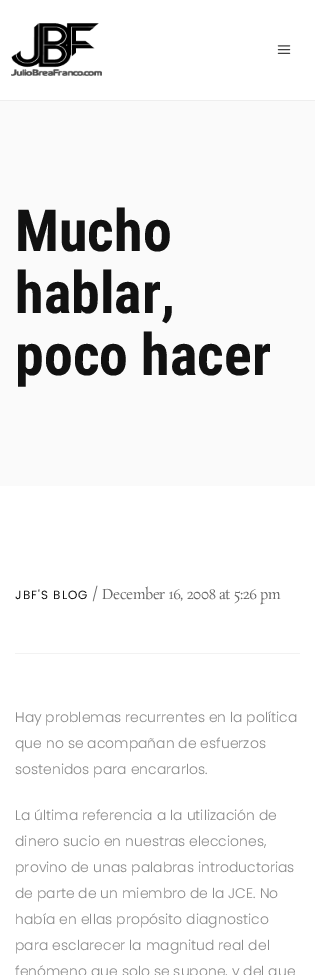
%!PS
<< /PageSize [315 975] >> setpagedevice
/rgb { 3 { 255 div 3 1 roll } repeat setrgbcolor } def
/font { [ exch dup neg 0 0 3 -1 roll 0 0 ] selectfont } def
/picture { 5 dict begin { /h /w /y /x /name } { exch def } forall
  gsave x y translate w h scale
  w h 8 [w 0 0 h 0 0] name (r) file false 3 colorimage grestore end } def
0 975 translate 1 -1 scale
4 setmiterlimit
250 250 250 rgb
0 0 315 975 rectfill
238 238 238 rgb
0 100 315 1 rectfill
255 255 255 rgb
0 0 315 100 rectfill
(img/1.rgb) 11 23 91 53 picture
(img/2.rgb) 277 45 14 9 picture
0 486 315 489 rectfill
242 242 242 rgb
15 653 285 1 rectfill
/RobotoCondensed-Bold 58 font
17 17 17 rgb
[
  [(Mucho) 15 251]
  [(hablar,) 15 313]
  [(poco hacer) 15 375]
] { aload pop moveto show } forall
/Poppins-Regular 12 font
15 599 moveto 1 0 (JBF'S BLOG) ashow
/Poppins-Light 14 font
106 106 106 rgb
92 599 moveto (/) show
/Rosarivo-Regular 14 font
102 599 moveto -0.5 0 (December 16, 2008 at 5:26 pm) ashow
/Poppins-Light 14 font
138 138 138 rgb
[
  [(Hay problemas recurrentes en la política) 15 722]
  [(que no se acompañan de esfuerzos) 15 748]
  [(sostenidos para encararlos.) 15 774]
  [(La última referencia a la utilización de) 15 820]
  [(dinero sucio en nuestras elecciones,) 15 846]
  [(provino de unas palabras introductorias) 15 872]
  [(de parte de un miembro de la JCE. No) 15 898]
  [(había en ellas propósito diagnostico) 15 924]
  [(para esclarecer la magnitud real del) 15 950]
  [(fenómeno que solo se supone, y del que) 15 976]
] { aload pop moveto show } forall
showpage
